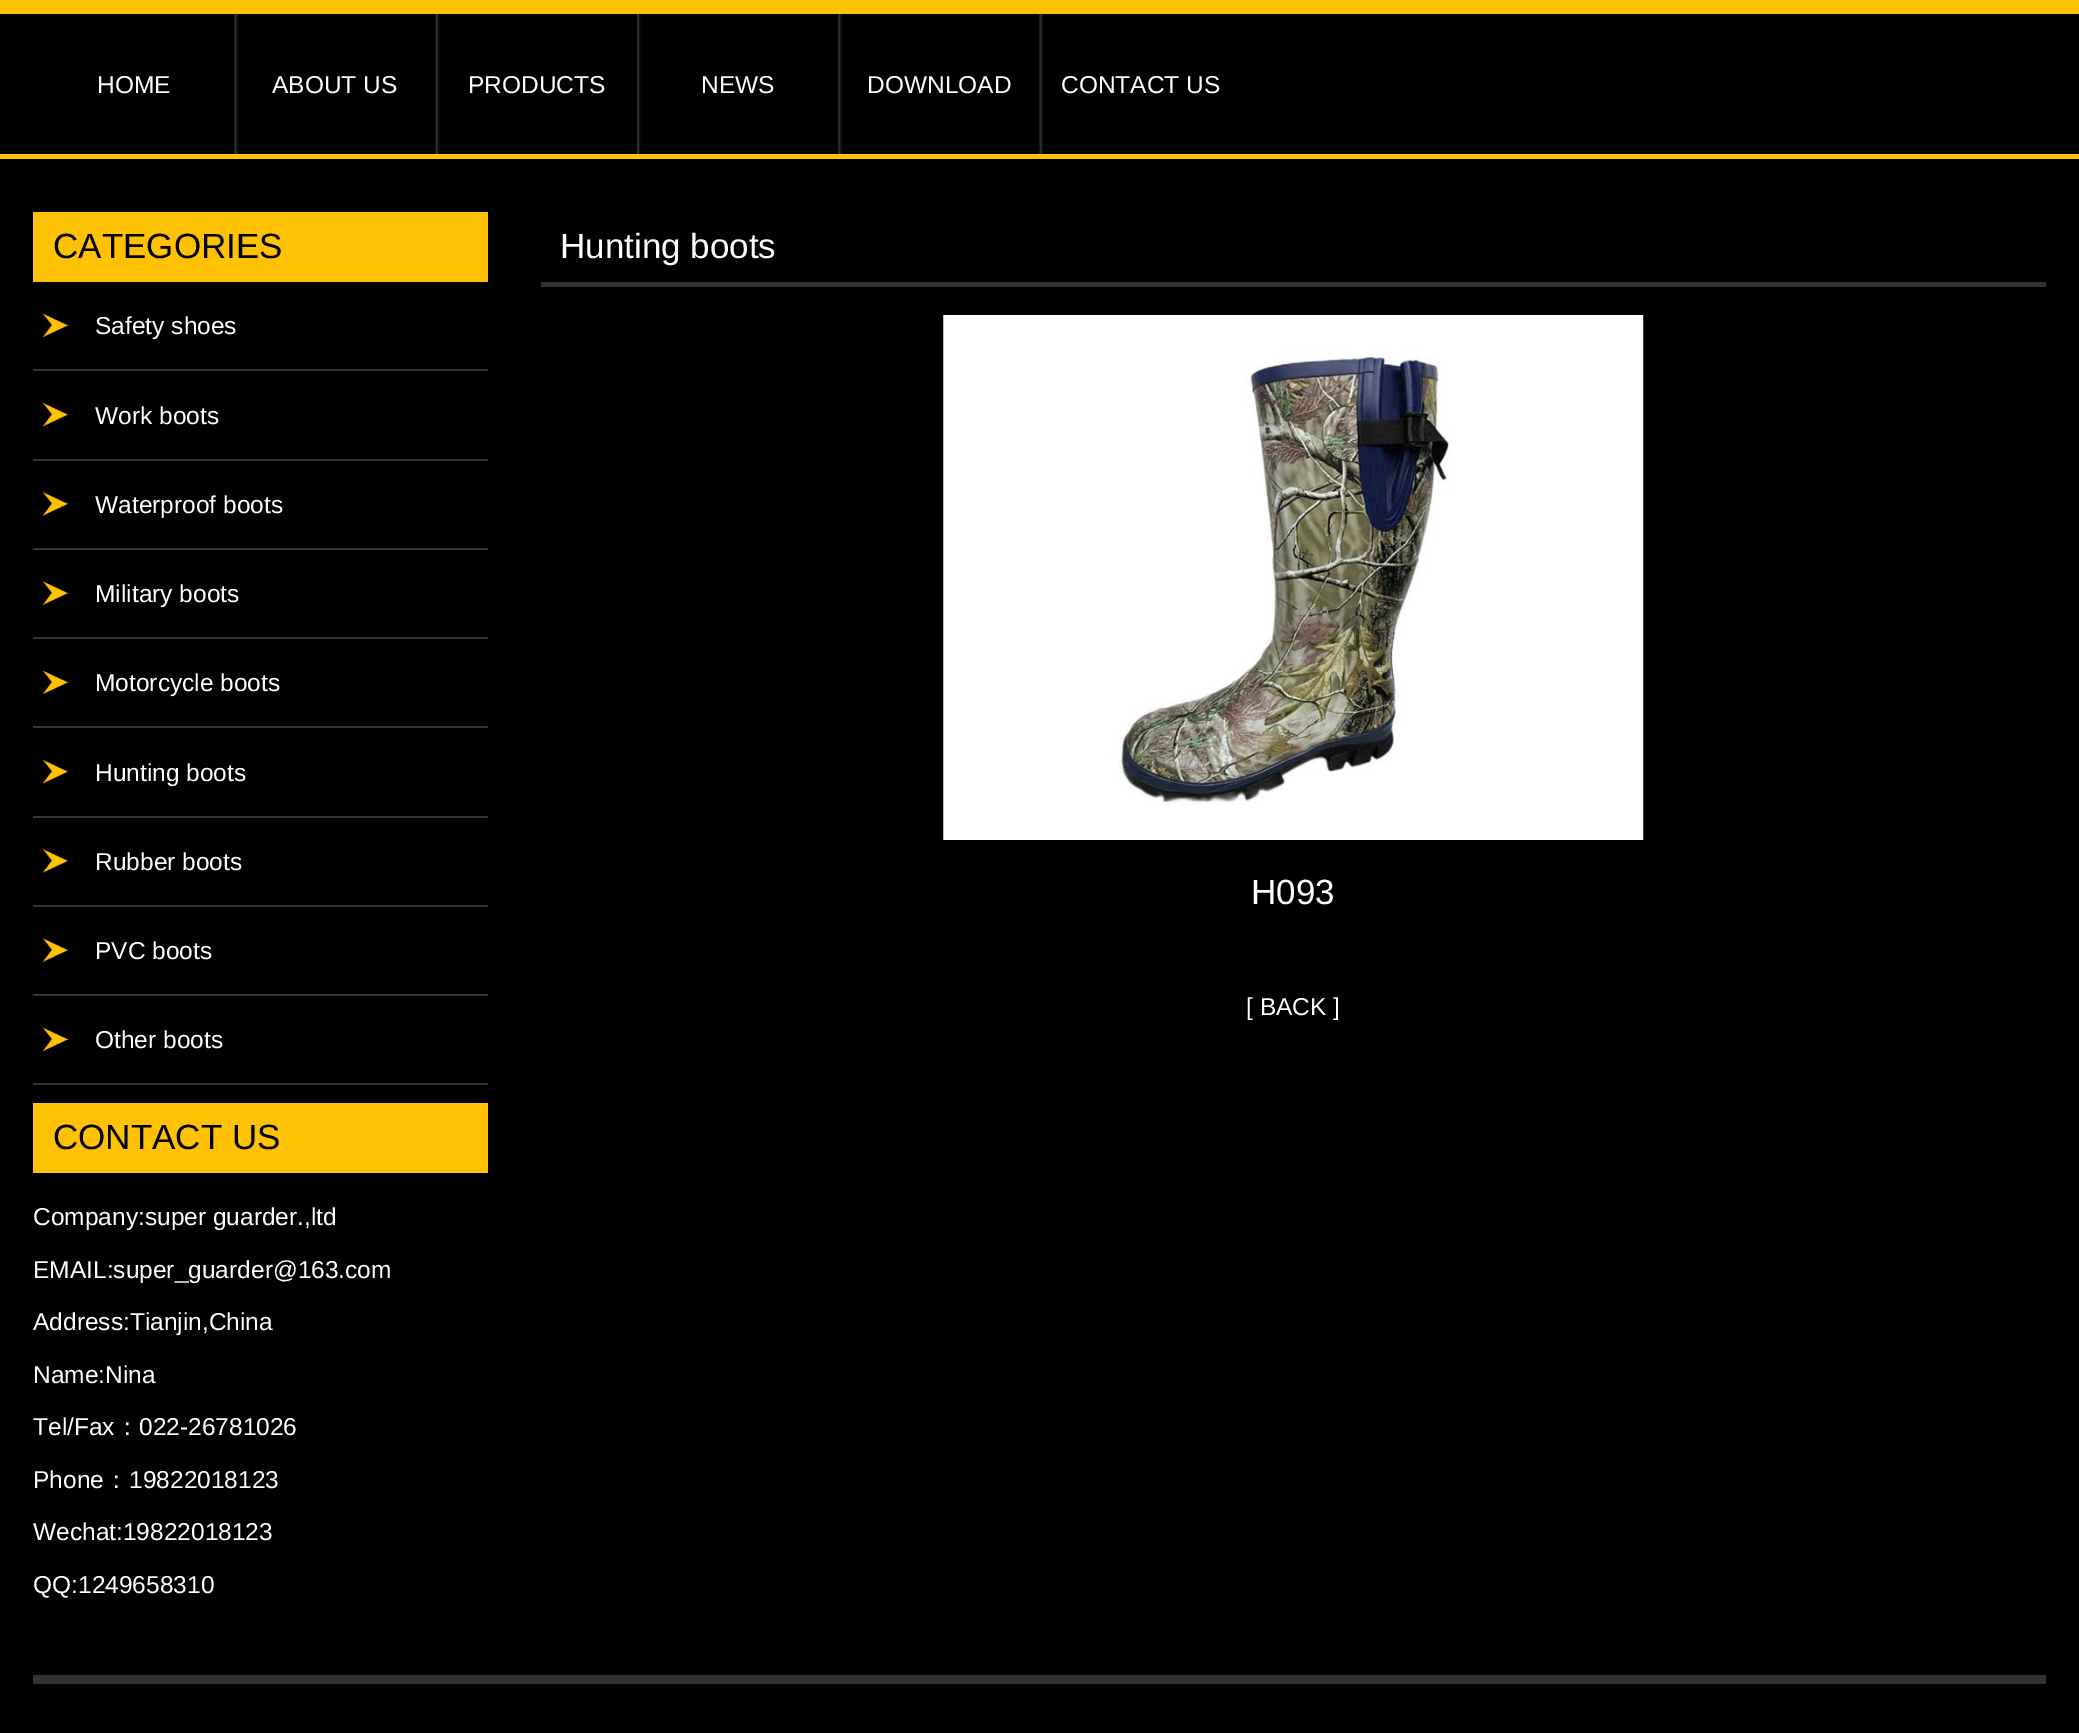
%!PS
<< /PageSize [2079 1733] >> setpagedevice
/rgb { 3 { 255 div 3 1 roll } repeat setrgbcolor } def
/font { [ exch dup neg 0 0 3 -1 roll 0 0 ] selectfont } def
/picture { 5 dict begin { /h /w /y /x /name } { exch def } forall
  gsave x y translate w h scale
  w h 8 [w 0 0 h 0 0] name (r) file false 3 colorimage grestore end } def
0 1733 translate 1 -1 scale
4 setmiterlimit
0 0 0 rgb
0 0 2079 1733 rectfill
254 193 4 rgb
0 0 2079 14 rectfill
0 154 2079 5 rectfill
(img/1.rgb) 234 14 4 140 picture
(img/2.rgb) 435 14 5 140 picture
(img/3.rgb) 637 14 4 140 picture
(img/4.rgb) 838 14 4 140 picture
(img/1.rgb) 1039 14 4 140 picture
33 212 455 70 rectfill
51 51 51 rgb
33 369 455 2 rectfill
(img/5.rgb) 42 313 27 25 picture
33 459 455 2 rectfill
(img/6.rgb) 42 402 27 25 picture
33 548 455 2 rectfill
(img/7.rgb) 42 491 27 25 picture
33 637 455 2 rectfill
(img/8.rgb) 42 581 27 24 picture
33 726 455 2 rectfill
(img/5.rgb) 42 670 27 25 picture
33 816 455 2 rectfill
(img/6.rgb) 42 759 27 25 picture
33 905 455 2 rectfill
(img/7.rgb) 42 848 27 25 picture
33 994 455 2 rectfill
(img/8.rgb) 42 938 27 24 picture
33 1083 455 2 rectfill
(img/5.rgb) 42 1027 27 25 picture
254 193 4 rgb
33 1103 455 70 rectfill
51 51 51 rgb
541 282 1505 5 rectfill
(img/9.rgb) 943 315 701 525 picture
33 1675 2013 9 rectfill
/LiberationSans-Regular 24.5 font
255 255 255 rgb
[
  [(HOME) 97 93]
  [(ABOUT US) 272 93]
  [(PRODUCTS) 468 93]
  [(NEWS) 701 93]
  [(DOWNLOAD) 867 93]
  [(CONTACT US) 1061 93]
] { aload pop moveto show } forall
/LiberationSans-Regular 35 font
0 0 0 rgb
53 258 moveto (CATEGORIES) show
/LiberationSans-Regular 24.5 font
255 255 255 rgb
[
  [(Safety shoes) 95 334]
  [(Work boots) 95 424]
  [(Waterproof boots) 95 513]
  [(Military boots) 95 602]
  [(Motorcycle boots) 95 691]
  [(Hunting boots) 95 781]
  [(Rubber boots) 95 870]
  [(PVC boots) 95 959]
  [(Other boots) 95 1048]
] { aload pop moveto show } forall
/LiberationSans-Regular 35 font
0 0 0 rgb
53 1149 moveto (CONTACT US) show
/LiberationSans-Regular 24.5 font
255 255 255 rgb
[
  [(Company:super guarder.,ltd) 33 1225]
  [(EMAIL:super_guarder@163.com) 33 1278]
  [(Address:Tianjin,China) 33 1330]
  [(Name:Nina) 33 1383]
  [(Tel/Fax) 33 1435]
] { aload pop moveto show } forall
/WenQuanYiZenHei-Medium 24.5 font
115 1435 moveto (：) show
/LiberationSans-Regular 24.5 font
139 1435 moveto (022-26781026) show
33 1488 moveto (Phone) show
/WenQuanYiZenHei-Medium 24.5 font
104 1488 moveto (：) show
/LiberationSans-Regular 24.5 font
[
  [(19822018123) 129 1488]
  [(Wechat:19822018123) 33 1540]
  [(QQ:1249658310) 33 1593]
] { aload pop moveto show } forall
/LiberationSans-Regular 35 font
560 258 moveto (Hunting boots) show
1251 904 moveto (H093) show
/LiberationSans-Regular 24.5 font
1246 1015 moveto ([ BACK ]) show
showpage
